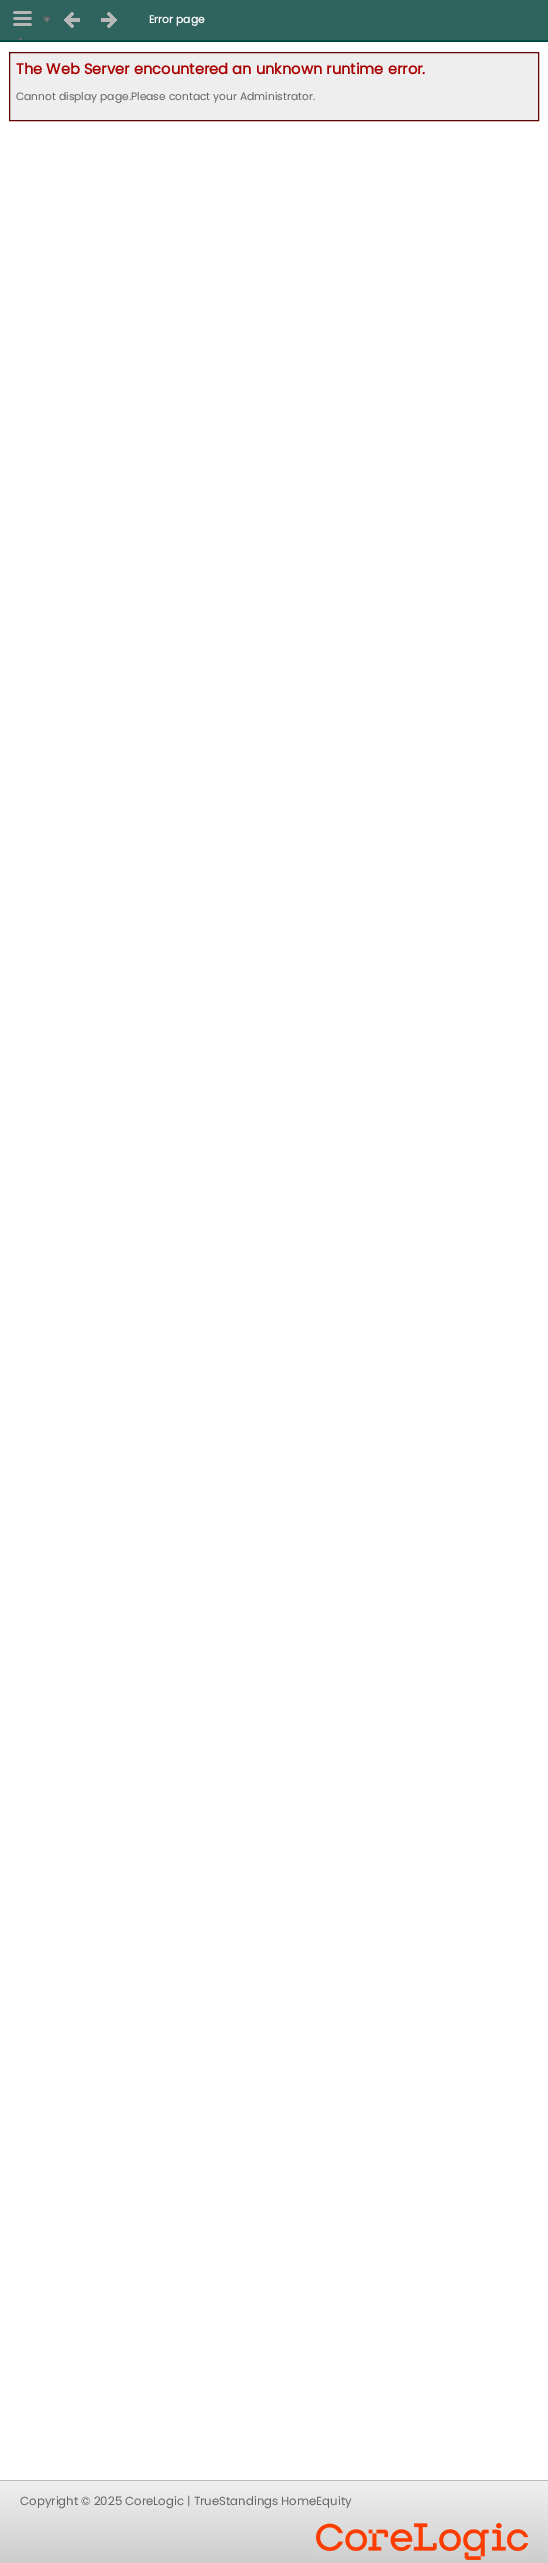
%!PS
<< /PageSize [548 2563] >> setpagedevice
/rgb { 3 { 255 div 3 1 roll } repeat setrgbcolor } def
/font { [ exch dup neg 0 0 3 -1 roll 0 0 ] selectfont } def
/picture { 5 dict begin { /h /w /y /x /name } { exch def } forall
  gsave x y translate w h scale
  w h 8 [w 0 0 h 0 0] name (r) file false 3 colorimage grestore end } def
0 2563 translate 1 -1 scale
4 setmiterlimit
255 255 255 rgb
0 0 548 2563 rectfill
46 100 93 rgb
0 0 548 40 rectfill
0 77 69 rgb
0 40 548 2 rectfill
(img/1.rgb) 13 11 19 29 picture
(img/2.rgb) 43 16 8 7 picture
(img/3.rgb) 64 12 16 16 picture
(img/4.rgb) 101 12 16 16 picture
238 238 238 rgb
9.5 52.5 moveto 538.5 52.5 lineto 538.5 120.5 lineto 9.5 120.5 lineto closepath gsave fill grestore
102 0 0 rgb
stroke
gsave 0 2481 moveto 548 2481 lineto 548 2563 lineto 0 2563 lineto closepath clip newpath
<< /ShadingType 2 /ColorSpace /DeviceRGB /Coords [274 2480 274 2563] /Extend [true true] /Function << /FunctionType 2 /Domain [0 1] /C0 [0.941 0.941 0.941] /C1 [0.804 0.804 0.804] /N 1 >> >> shfill grestore
188 188 188 rgb
0 2480 548 1 rectfill
(img/5.rgb) 316 2523 212 37 picture
/Poppins-Bold 10.7 font
255 255 255 rgb
149 23 moveto (Error page) show
/Poppins-Bold 14.7 font
170 0 0 rgb
16 74 moveto (The Web Server encountered an unknown runtime error.) show
/Poppins-Regular 10.7 font
101 101 101 rgb
16 100 moveto (Cannot display page.Please contact your Administrator.) show
/Poppins-Regular 11.75 font
20 2505 moveto (Copyright © 2025 CoreLogic | TrueStandings HomeEquity) show
showpage
